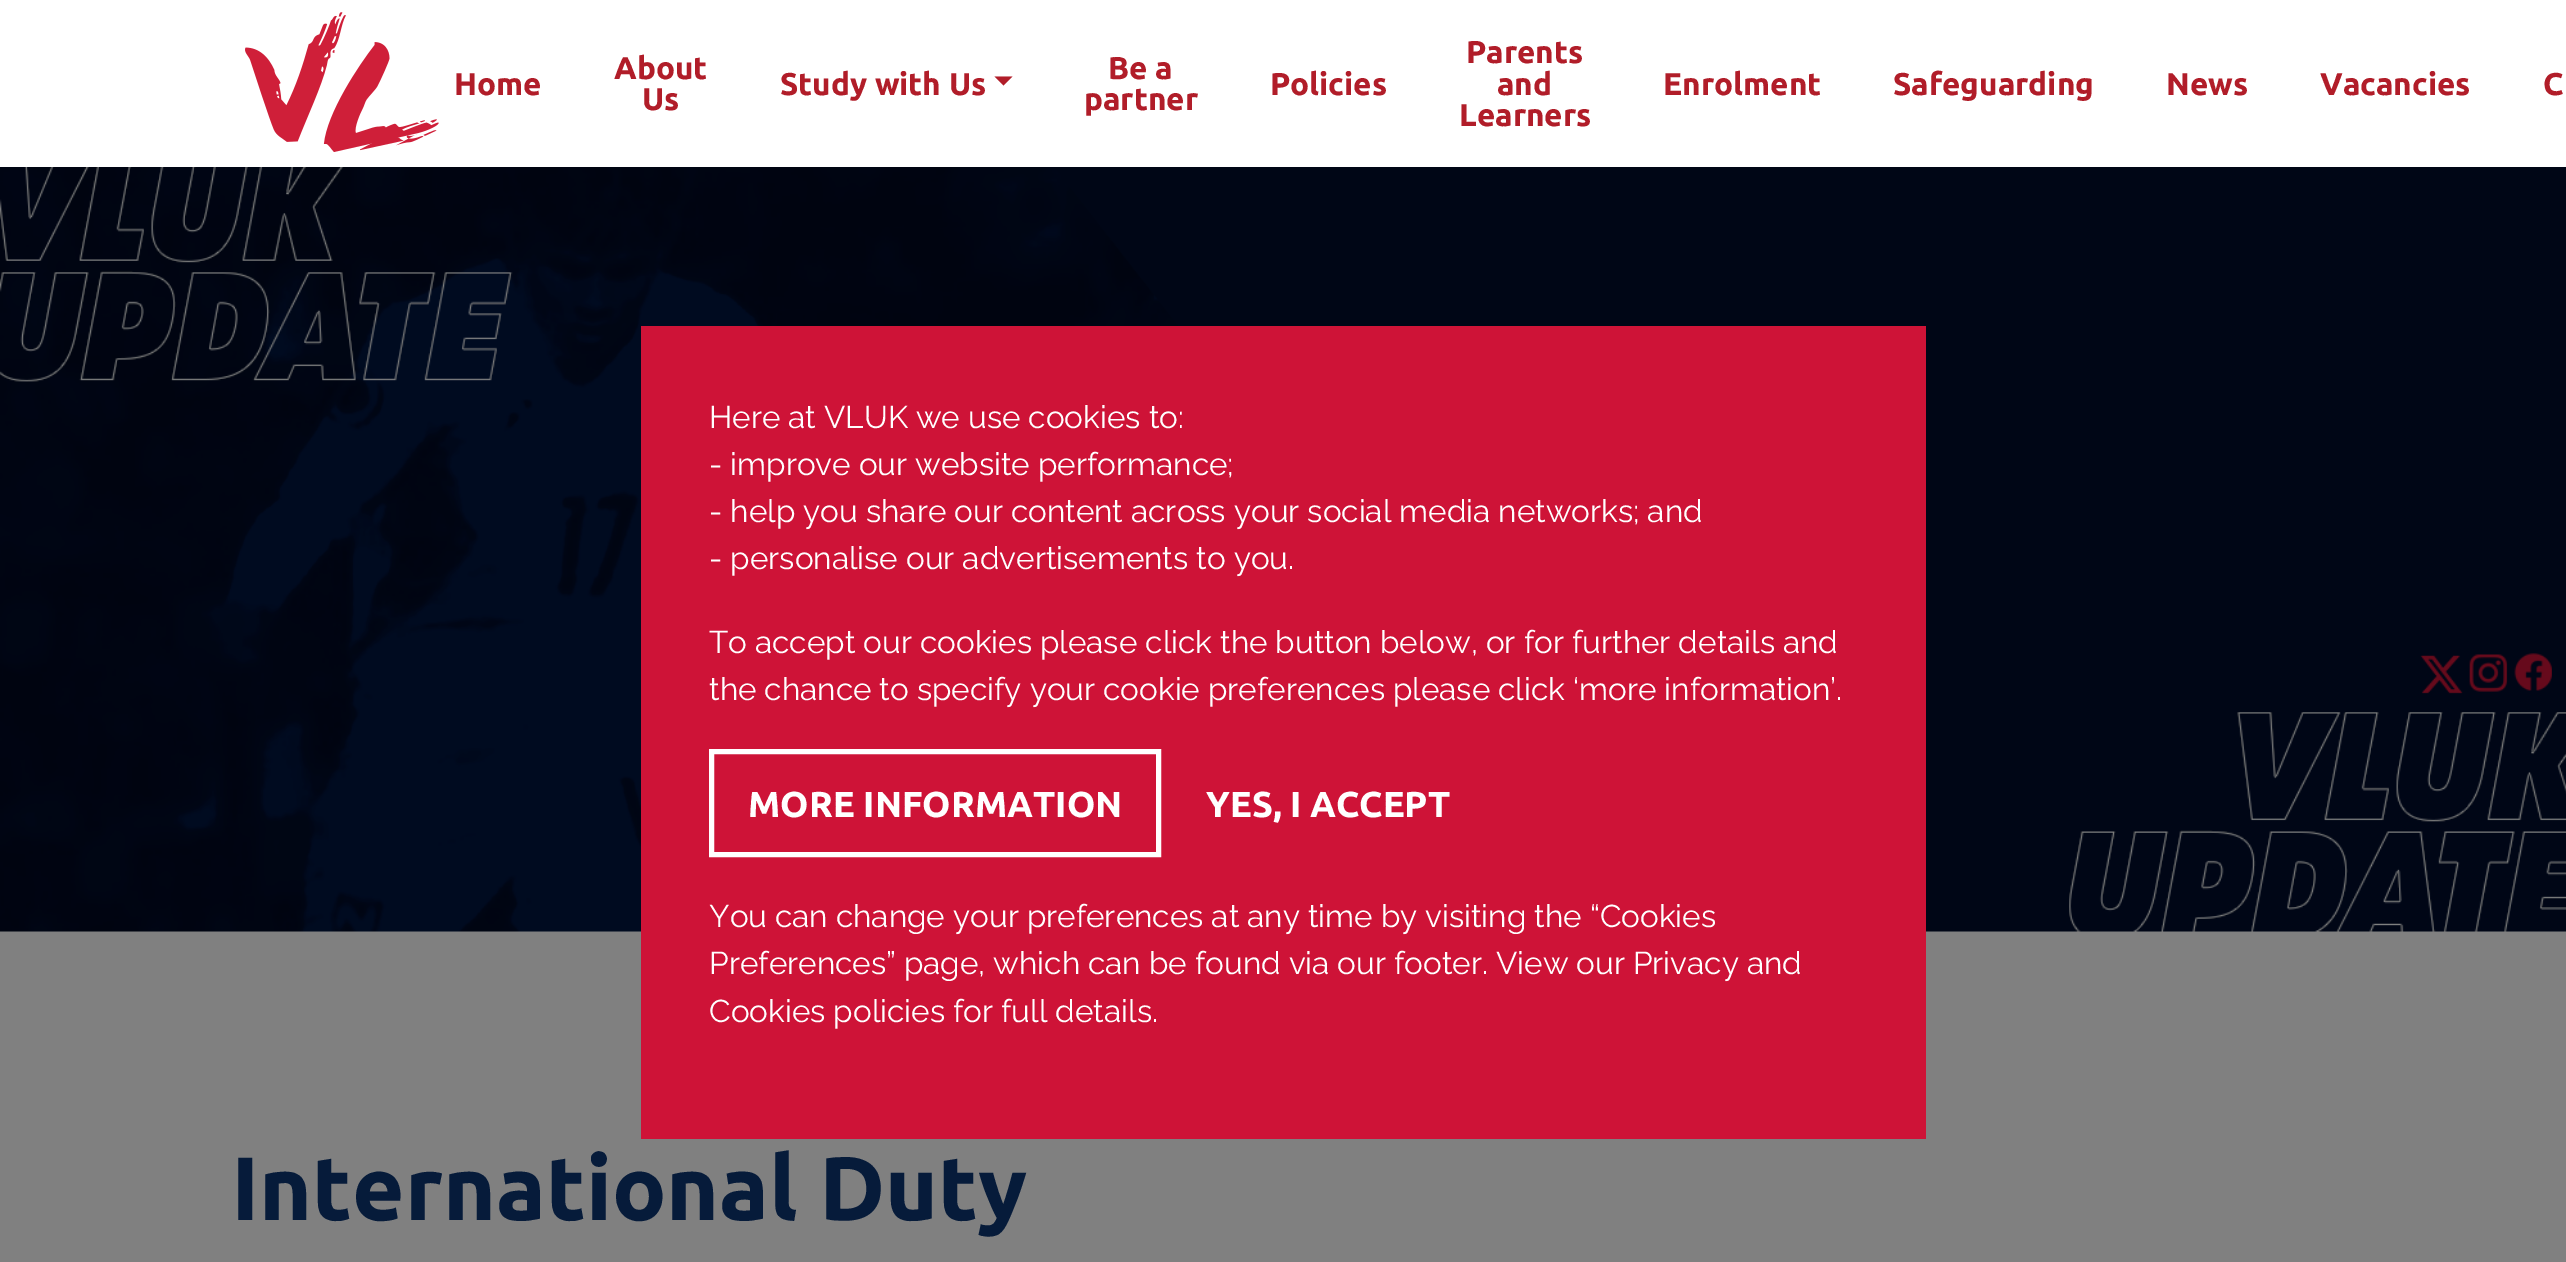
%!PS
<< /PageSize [2566 1262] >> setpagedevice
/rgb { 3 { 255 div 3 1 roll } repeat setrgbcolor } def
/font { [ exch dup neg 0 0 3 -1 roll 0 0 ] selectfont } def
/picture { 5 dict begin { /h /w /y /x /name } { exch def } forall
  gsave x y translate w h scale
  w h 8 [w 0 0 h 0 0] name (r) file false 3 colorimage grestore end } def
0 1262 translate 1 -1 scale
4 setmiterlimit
128 128 128 rgb
0 0 2566 1262 rectfill
255 255 255 rgb
0 0 2566 167 rectfill
(img/1.rgb) 245 12 194 140 picture
177 29 41 rgb
994.5 76.5 moveto 1012.5 76.5 lineto 1003.5 85.5 lineto closepath fill
(img/2.rgb) 0 167 2566 765 picture
206 19 55 rgb
641 326 1285 813 rectfill
255 255 255 rgb
5 setlinewidth
711.5 751.5 447 103 rectstroke
/Ubuntu-Bold 31.5 font
177 29 41 rgb
[
  [(Home) 454 95]
  [(About) 614 79]
  [(Us) 642 110]
  [(Study with Us) 780 95]
  [(Be a) 1108 79]
  [(partner) 1084 110]
  [(Policies) 1270 95]
  [(Parents) 1466 63]
  [(and) 1497 95]
  [(Learners) 1459 126]
  [(Enrolment) 1663 95]
  [(Safeguarding) 1893 95]
  [(News) 2166 95]
  [(Vacancies) 2320 95]
  [(C) 2543 95]
] { aload pop moveto show } forall
/Raleway-Regular 31.5 font
255 255 255 rgb
[
  [(Here at VLUK we use cookies to:) 709 428]
  [(- improve our website performance;) 709 475]
  [(- help you share our content across your social media networks; and) 709 522]
  [(- personalise our advertisements to you.) 709 569]
  [(To accept our cookies please click the button below, or for further details and) 709 653]
  [(the chance to specify your cookie preferences please click ‘more information’.) 709 700]
] { aload pop moveto show } forall
/Ubuntu-Bold 36 font
748 817 moveto (MORE INFORMATION) show
1206 817 moveto (YES, I ACCEPT) show
/Raleway-Regular 31.5 font
[
  [(You can change your preferences at any time by visiting the “Cookies) 709 927]
  [(Preferences” page, which can be found via our footer. View our Privacy and) 709 974]
  [(Cookies policies for full details.) 709 1022]
] { aload pop moveto show } forall
/Ubuntu-Bold 90 font
6 27 58 rgb
231 1220 moveto (International Duty) show
showpage
